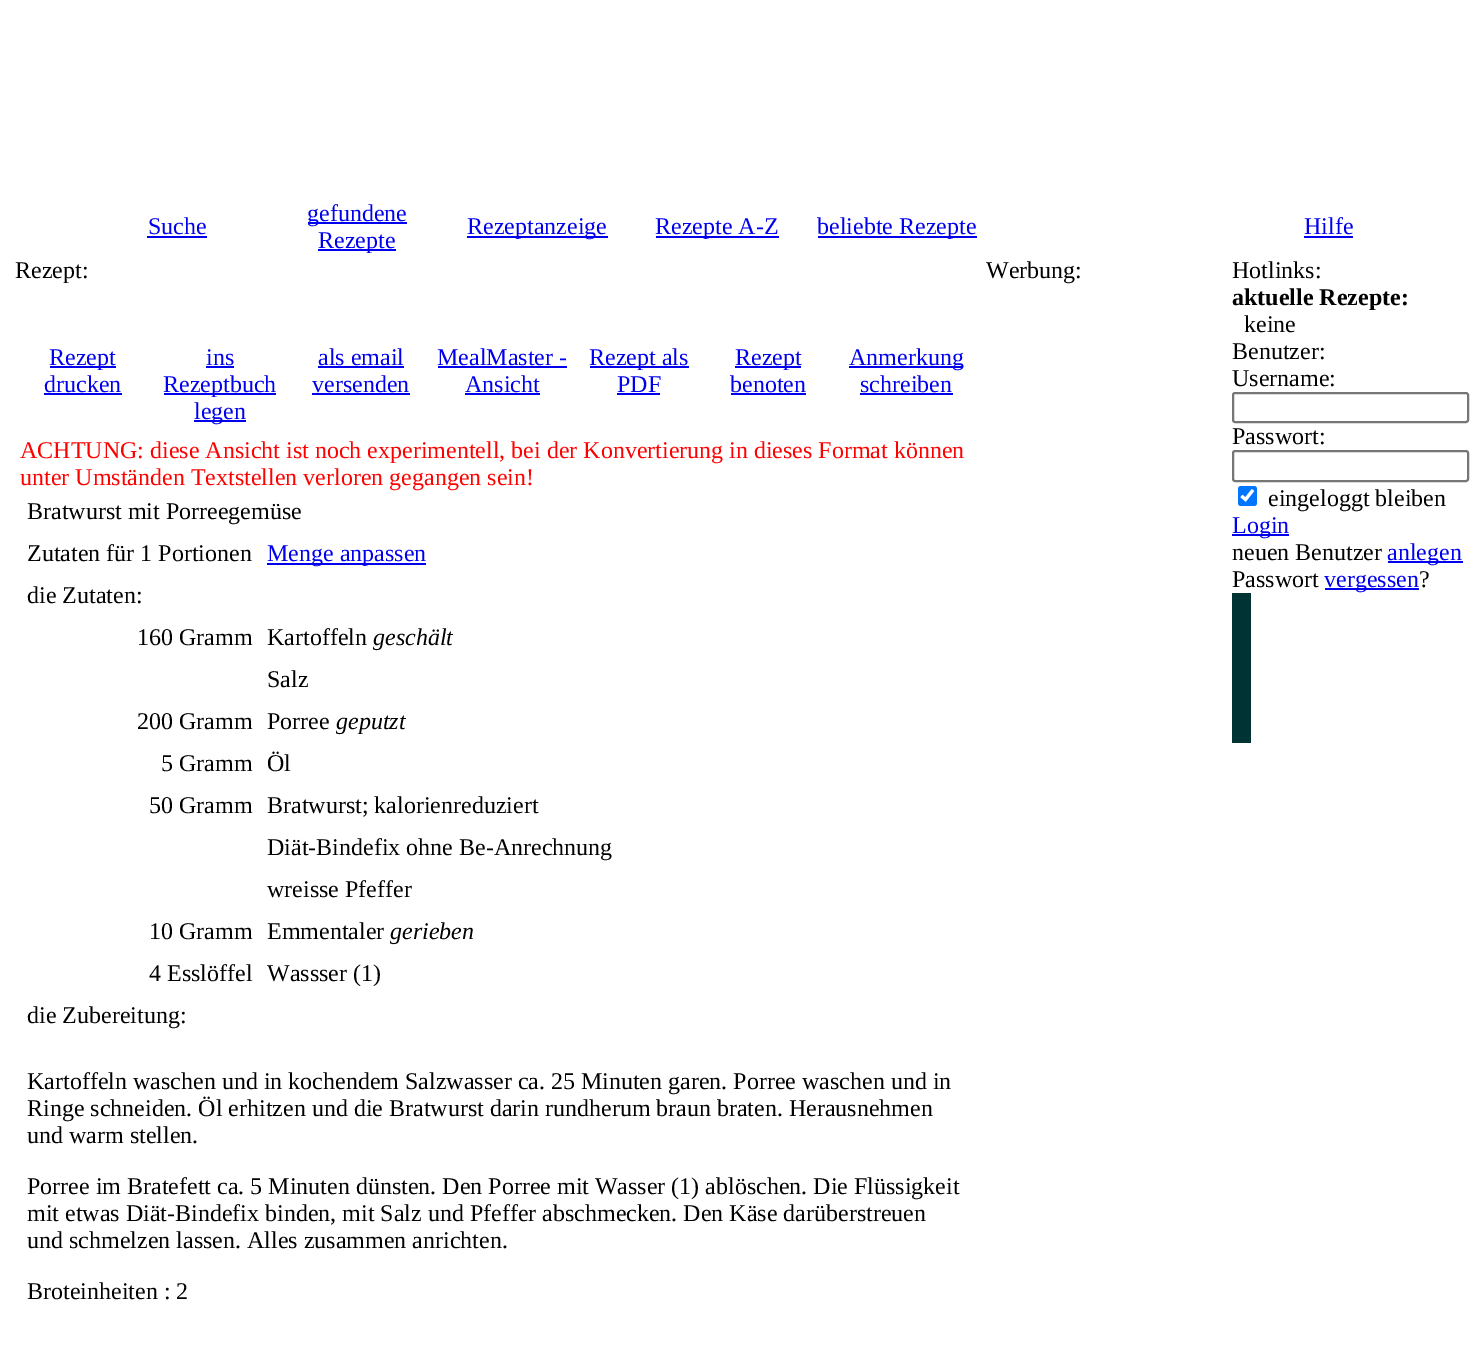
%!PS
<< /PageSize [1483 1348] >> setpagedevice
/rgb { 3 { 255 div 3 1 roll } repeat setrgbcolor } def
/font { [ exch dup neg 0 0 3 -1 roll 0 0 ] selectfont } def
/roundrect { 5 dict begin { /r /h /w /y /x } { exch def } forall
  x r add y moveto x w add y 2 copy h add r arct x w add y h add x 1 index r arct
  x y h add x y r arct x y 2 copy exch w add exch r arct closepath end } def
0 1348 translate 1 -1 scale
4 setmiterlimit
255 255 255 rgb
0 0 1483 1348 rectfill
[
  [147 236 60 2 0 0 238]
  [308 222 99 2 0 0 238]
  [318 249 78 2 0 0 238]
  [467 236 141 2 0 0 238]
  [656 236 123 2 0 0 238]
  [818 236 159 2 0 0 238]
  [1304 236 49 2 0 0 238]
  [50 366 66 2 0 0 238]
  [44 393 78 2 0 0 238]
  [206 366 28 2 0 0 238]
  [164 393 112 2 0 0 238]
  [194 420 52 2 0 0 238]
  [318 366 86 2 0 0 238]
  [312 393 98 2 0 0 238]
  [438 366 129 2 0 0 238]
  [465 393 75 2 0 0 238]
  [590 366 99 2 0 0 238]
  [617 393 43 2 0 0 238]
  [735 366 66 2 0 0 238]
  [731 393 75 2 0 0 238]
  [849 366 114 2 0 0 238]
  [860 393 93 2 0 0 238]
  [267 563 159 2 0 0 238]
] { aload pop rgb rectfill } forall
118 118 118 rgb
2 setlinewidth
1233 393 235 29 2 roundrect stroke
1233 451 235 30 2 roundrect stroke
0 117 255 rgb
1238 486 19 20 3 roundrect fill
255 255 255 rgb
3.1 setlinewidth
1241.5 496 moveto 1245.5 499.5 lineto 1253 490 lineto stroke
[
  [1232 534 57 2 0 0 238]
  [1388 561 75 2 0 0 238]
  [1325 588 94 2 0 0 238]
  [1232 593 19 150 0 51 51]
] { aload pop rgb rectfill } forall
/LiberationSerif-Regular 24 font
0 0 238 rgb
[
  [(Suche) 148 234]
  [(gefundene) 307 221]
  [(Rezepte) 318 248]
  [(Rezeptanzeige) 467 234]
  [(Rezepte A-Z) 655 234]
  [(beliebte Rezepte) 817 234]
  [(Hilfe) 1304 234]
] { aload pop moveto show } forall
0 0 0 rgb
15 278 moveto (Rezept:) show
0 0 238 rgb
[
  [(Rezept) 49 365]
  [(drucken) 44 392]
  [(ins) 206 365]
  [(Rezeptbuch) 163 392]
  [(legen) 194 419]
  [(als email) 318 365]
  [(versenden) 312 392]
  [(MealMaster -) 437 365]
  [(Ansicht) 465 392]
  [(Rezept als) 589 365]
  [(PDF) 617 392]
  [(Rezept) 735 365]
  [(benoten) 730 392]
  [(Anmerkung) 849 365]
  [(schreiben) 860 392]
] { aload pop moveto show } forall
255 0 0 rgb
20 458 moveto (ACHTUNG: diese Ansicht ist noch experimentell, bei der Konvertierung in dieses Format können) show
20 485 moveto (unter Umständen Textstellen verloren gegangen sein!) show
0 0 0 rgb
27 519 moveto (Bratwurst mit Porreegemüse) show
27 561 moveto (Zutaten für 1 Portionen) show
0 0 238 rgb
267 561 moveto (Menge anpassen) show
0 0 0 rgb
[
  [(die Zutaten:) 27 603]
  [(160 Gramm) 137 645]
  [(Kartoffeln) 267 645]
] { aload pop moveto show } forall
/LiberationSerif-Italic 24 font
373 645 moveto (geschält) show
/LiberationSerif-Regular 24 font
[
  [(Salz) 267 687]
  [(200 Gramm) 137 729]
  [(Porree) 267 729]
] { aload pop moveto show } forall
/LiberationSerif-Italic 24 font
336 729 moveto (geputzt) show
/LiberationSerif-Regular 24 font
[
  [(5 Gramm) 161 771]
  [(Öl) 267 771]
  [(50 Gramm) 149 813]
  [(Bratwurst; kalorienreduziert) 267 813]
  [(Diät-Bindefix ohne Be-Anrechnung) 267 855]
  [(wreisse Pfeffer) 267 897]
  [(10 Gramm) 149 939]
  [(Emmentaler) 267 939]
] { aload pop moveto show } forall
/LiberationSerif-Italic 24 font
390 939 moveto (gerieben) show
/LiberationSerif-Regular 24 font
[
  [(4 Esslöffel) 149 981]
  [(Wassser \(1\)) 267 981]
  [(die Zubereitung:) 27 1023]
  [(Kartoffeln waschen und in kochendem Salzwasser ca. 25 Minuten garen. Porree waschen und in) 27 1089]
  [(Ringe schneiden. Öl erhitzen und die Bratwurst darin rundherum braun braten. Herausnehmen) 27 1116]
  [(und warm stellen.) 27 1143]
  [(Porree im Bratefett ca. 5 Minuten dünsten. Den Porree mit Wasser \(1\) ablöschen. Die Flüssigkeit) 27 1194]
  [(mit etwas Diät-Bindefix binden, mit Salz und Pfeffer abschmecken. Den Käse darüberstreuen) 27 1221]
  [(und schmelzen lassen. Alles zusammen anrichten.) 27 1248]
  [(Broteinheiten : 2) 27 1299]
  [(Werbung:) 986 278]
  [(Hotlinks:) 1232 278]
] { aload pop moveto show } forall
/LiberationSerif-Bold 24 font
1232 305 moveto (aktuelle Rezepte:) show
/LiberationSerif-Regular 24 font
[
  [(keine) 1244 332]
  [(Benutzer:) 1232 359]
  [(Username:) 1232 386]
  [(Passwort:) 1232 444]
  [(eingeloggt bleiben) 1268 506]
] { aload pop moveto show } forall
0 0 238 rgb
1232 533 moveto (Login) show
0 0 0 rgb
1232 560 moveto (neuen Benutzer) show
0 0 238 rgb
1387 560 moveto (anlegen) show
0 0 0 rgb
1232 587 moveto (Passwort) show
0 0 238 rgb
1324 587 moveto (vergessen) show
0 0 0 rgb
1419 587 moveto (?) show
showpage
